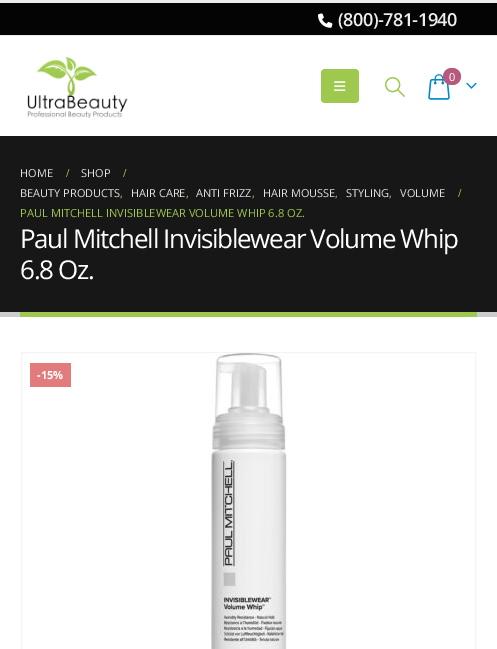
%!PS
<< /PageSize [497 649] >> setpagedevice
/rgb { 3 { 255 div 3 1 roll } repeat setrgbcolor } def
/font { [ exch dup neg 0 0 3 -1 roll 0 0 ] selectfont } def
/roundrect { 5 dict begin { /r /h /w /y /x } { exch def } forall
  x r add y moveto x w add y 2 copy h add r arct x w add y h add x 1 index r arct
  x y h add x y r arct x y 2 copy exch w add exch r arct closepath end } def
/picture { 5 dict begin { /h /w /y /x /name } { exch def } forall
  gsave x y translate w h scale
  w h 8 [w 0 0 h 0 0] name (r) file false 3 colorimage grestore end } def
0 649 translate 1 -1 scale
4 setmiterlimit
255 255 255 rgb
0 0 497 649 rectfill
[
  [0 0 497 3 237 237 237]
  [0 3 497 32 4 4 4]
  [0 35 497 1 237 237 237]
] { aload pop rgb rectfill } forall
(img/1.rgb) 318 13 15 15 picture
(img/2.rgb) 27 56 101 62 picture
158 200 78 rgb
321 69 38 34 4 roundrect fill
(img/3.rgb) 334 81 12 10 picture
(img/4.rgb) 385 77 20 20 picture
(img/5.rgb) 428 74 22 26 picture
183 89 124 rgb
443 68 18 17 8.5 roundrect fill
(img/6.rgb) 466 82 11 7 picture
[
  [0 136 497 176 23 23 23]
  [0 312 497 5 204 204 204]
  [20 312 457 5 158 200 78]
] { aload pop rgb rectfill } forall
244 244 244 rgb
21.5 352.5 454 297 rectstroke
(img/7.rgb) 209 353 80 296 picture
226 124 124 rgb
30 363 41 24 rectfill
/OpenSans-SemiBold 18 font
238 237 237 rgb
338 26 moveto -0.5 0 (\(800\)-781-1940) ashow
/OpenSans-Regular 11 font
255 255 255 rgb
449 81 moveto (0) show
225 225 225 rgb
20 177 moveto (HOME) show
/LiberationSerif-Bold 12 font
157 199 77 rgb
66 177 moveto (/) show
/OpenSans-Regular 11 font
225 225 225 rgb
81 177 moveto (SHOP) show
/LiberationSerif-Bold 12 font
157 199 77 rgb
123 177 moveto (/) show
/OpenSans-Regular 11 font
225 225 225 rgb
20 197 moveto (BEAUTY PRODUCTS) show
/OpenSans-Regular 11.15 font
157 199 77 rgb
120 197 moveto (,) show
/OpenSans-Regular 11 font
225 225 225 rgb
131 197 moveto (HAIR CARE) show
/OpenSans-Regular 11.15 font
157 199 77 rgb
186 197 moveto (,) show
/OpenSans-Regular 11 font
225 225 225 rgb
196 197 moveto (ANTI FRIZZ) show
/OpenSans-Regular 11.15 font
157 199 77 rgb
252 197 moveto (,) show
/OpenSans-Regular 11 font
225 225 225 rgb
263 197 moveto (HAIR MOUSSE) show
/OpenSans-Regular 11.15 font
157 199 77 rgb
335 197 moveto (,) show
/OpenSans-Regular 11 font
225 225 225 rgb
346 197 moveto (STYLING) show
/OpenSans-Regular 11.15 font
157 199 77 rgb
389 197 moveto (,) show
/OpenSans-Regular 11 font
225 225 225 rgb
400 197 moveto (VOLUME) show
/LiberationSerif-Bold 12 font
157 199 77 rgb
458 197 moveto (/) show
/OpenSans-Regular 11.15 font
20 217 moveto (PAUL MITCHELL INVISIBLEWEAR VOLUME WHIP 6.8 OZ.) show
/OpenSans-Regular 26 font
255 255 255 rgb
20 248 moveto -1.3 0 (Paul Mitchell Invisiblewear Volume Whip) ashow
20 279 moveto -1.3 0 (6.8 Oz.) ashow
/OpenSans-Bold 11.15 font
37 379 moveto (-15%) show
showpage
